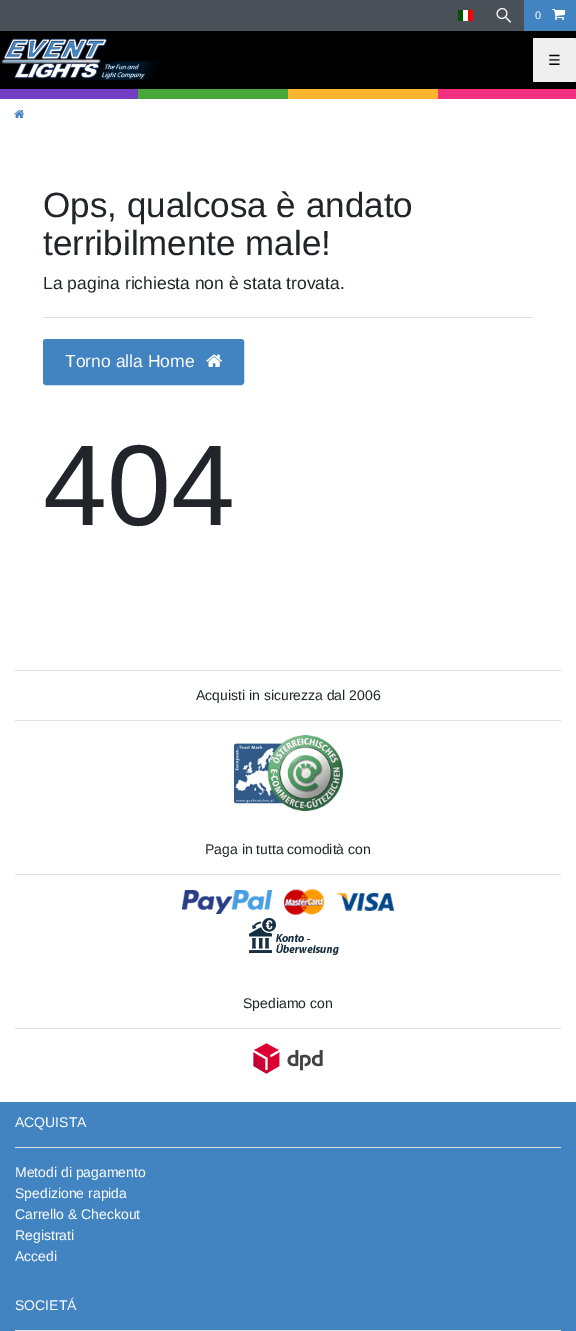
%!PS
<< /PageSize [576 1331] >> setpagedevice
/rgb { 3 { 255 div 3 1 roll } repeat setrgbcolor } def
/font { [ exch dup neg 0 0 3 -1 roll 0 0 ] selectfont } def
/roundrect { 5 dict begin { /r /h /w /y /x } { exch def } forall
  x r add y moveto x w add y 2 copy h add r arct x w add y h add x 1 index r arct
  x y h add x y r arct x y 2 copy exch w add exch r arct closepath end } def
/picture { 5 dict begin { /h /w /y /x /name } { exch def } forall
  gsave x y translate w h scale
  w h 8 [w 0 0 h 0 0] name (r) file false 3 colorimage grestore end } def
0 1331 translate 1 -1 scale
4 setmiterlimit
255 255 255 rgb
0 0 576 1331 rectfill
[
  [0 0 524 31 73 80 87]
  [463 10 5 11 255 255 255]
  [458 10 5 11 0 87 0]
  [468 10 5 11 252 0 0]
] { aload pop rgb rectfill } forall
255 255 255 rgb
510 22.5 moveto 509 21 500 12.5 500 12 curveto 501 11.5 lineto 511 22 lineto 511 22.5 510.5 22.5 510 22.5 curveto closepath fill
73 80 87 rgb
498 17.5 moveto 493 12.5 501 4.5 506 9.5 curveto 511 14.5 503 22.5 498 17.5 curveto closepath fill
255 255 255 rgb
498.5 17 moveto 494 12.5 501 5.5 505.5 10 curveto 510 14.5 503 21.5 498.5 17 curveto closepath stroke
66 132 193 rgb
524 0 52 31 rectfill
(img/1.rgb) 552 9 13 11 picture
0 0 0 rgb
0 31 576 58 rectfill
(img/2.rgb) 1 38 159 42 picture
239 239 239 rgb
533 38 43 44 1.5 roundrect fill
[
  [0 89 138 10 114 62 196]
  [138 89 150 10 72 169 58]
  [288 89 150 10 254 180 45]
  [438 89 138 10 243 47 129]
] { aload pop rgb rectfill } forall
(img/3.rgb) 14 110 11 8 picture
222 226 230 rgb
43 317 490 1 rectfill
66 132 193 rgb
43.5 339.5 200 45 2.5 roundrect gsave fill grestore
stroke
(img/4.rgb) 206 354 16 13 picture
222 226 230 rgb
15 670 546 1 rectfill
15 720 546 1 rectfill
(img/5.rgb) 234 735 109 76 picture
15 874 546 1 rectfill
(img/6.rgb) 182 889 212 68 picture
15 1028 546 1 rectfill
(img/7.rgb) 253 1043 70 31 picture
[
  [0 1102 576 229 66 132 193]
  [15 1147 546 1 222 226 230]
  [15 1330 546 1 222 226 230]
] { aload pop rgb rectfill } forall
/LiberationSans-Regular 11 font
255 255 255 rgb
535 19 moveto (0) show
/DejaVuSans-Regular 14 font
0 0 0 rgb
548 65 moveto (☰) show
/LiberationSans-Regular 35 font
33 37 41 rgb
43 217 moveto (Ops, qualcosa è andato) show
43 255 moveto (terribilmente male!) show
/LiberationSans-Regular 17.5 font
43 289 moveto (La pagina richiesta non è stata trovata.) show
255 255 255 rgb
65 367 moveto (Torno alla Home) show
/LiberationSans-Regular 115 font
33 37 41 rgb
43 525 moveto (404) show
/LiberationSans-Regular 14 font
[
  [(Acquisti in sicurezza dal 2006) 196 700]
  [(Paga in tutta comodità con) 205 854]
  [(Spediamo con) 243 1008]
] { aload pop moveto show } forall
255 255 255 rgb
[
  [(ACQUISTA) 15 1127]
  [(Metodi di pagamento) 15 1177]
  [(Spedizione rapida) 15 1198]
  [(Carrello & Checkout) 15 1219]
  [(Registrati) 15 1240]
  [(Accedi) 15 1261]
  [(SOCIETÁ) 15 1310]
] { aload pop moveto show } forall
showpage
